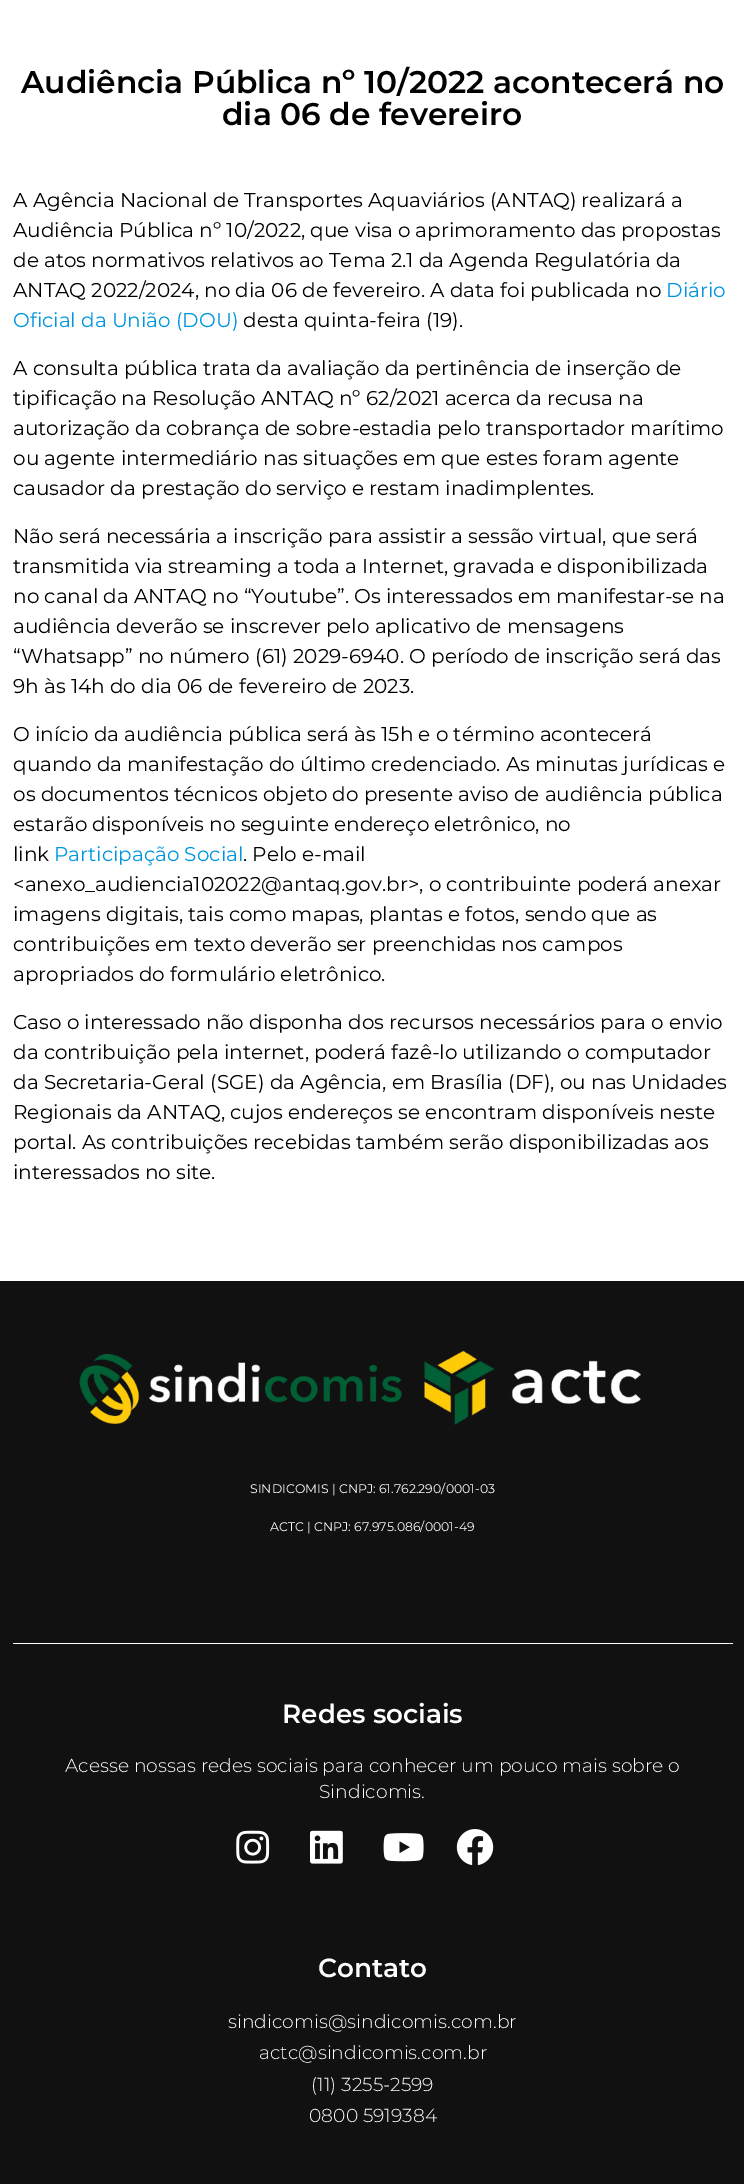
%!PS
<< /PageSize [744 2184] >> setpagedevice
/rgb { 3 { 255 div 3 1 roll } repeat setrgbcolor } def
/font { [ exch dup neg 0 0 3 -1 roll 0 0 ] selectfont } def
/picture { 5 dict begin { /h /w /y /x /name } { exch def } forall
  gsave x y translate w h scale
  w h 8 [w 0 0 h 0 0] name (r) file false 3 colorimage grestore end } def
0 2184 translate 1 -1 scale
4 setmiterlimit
255 255 255 rgb
0 0 744 2184 rectfill
17 17 17 rgb
0 1281 744 903 rectfill
(img/1.rgb) 79 1350 562 75 picture
255 255 255 rgb
13 1643 720 1 rectfill
(img/2.rgb) 236 1830 34 34 picture
(img/3.rgb) 310 1830 33 34 picture
(img/4.rgb) 383 1833 41 29 picture
(img/5.rgb) 456 1829 38 37 picture
/Montserrat-SemiBold 31.25 font
0 0 0 rgb
21 93 moveto (Audiência Pública nº 10/2022 acontecerá no) show
222 125 moveto (dia 06 de fevereiro) show
/Montserrat-Regular 20 font
[
  [(A Agência Nacional de Transportes Aquaviários \(ANTAQ\) realizará a) 13 207]
  [(Audiência Pública nº 10/2022, que visa o aprimoramento das propostas) 13 237]
  [(de atos normativos relativos ao Tema 2.1 da Agenda Regulatória da) 13 267]
  [(ANTAQ 2022/2024, no dia 06 de fevereiro. A data foi publicada no) 13 297]
] { aload pop moveto show } forall
0 150 223 rgb
666 297 moveto (Diário) show
13 327 moveto (Oficial da União \(DOU\)) show
0 0 0 rgb
[
  [(desta quinta-feira \(19\).) 243 327]
  [(A consulta pública trata da avaliação da pertinência de inserção de) 13 375]
  [(tipificação na Resolução ANTAQ nº 62/2021 acerca da recusa na) 13 405]
  [(autorização da cobrança de sobre-estadia pelo transportador marítimo) 13 435]
  [(ou agente intermediário nas situações em que estes foram agente) 13 465]
  [(causador da prestação do serviço e restam inadimplentes.) 13 495]
  [(Não será necessária a inscrição para assistir a sessão virtual, que será) 13 543]
  [(transmitida via streaming a toda a Internet, gravada e disponibilizada) 13 573]
  [(no canal da ANTAQ no “Youtube”. Os interessados em manifestar-se na) 13 603]
  [(audiência deverão se inscrever pelo aplicativo de mensagens) 13 633]
  [(“Whatsapp” no número \(61\) 2029-6940. O período de inscrição será das) 13 663]
  [(9h às 14h do dia 06 de fevereiro de 2023.) 13 693]
  [(O início da audiência pública será às 15h e o término acontecerá) 13 741]
  [(quando da manifestação do último credenciado. As minutas jurídicas e) 13 771]
  [(os documentos técnicos objeto do presente aviso de audiência pública) 13 801]
  [(estarão disponíveis no seguinte endereço eletrônico, no) 13 831]
  [(link) 13 861]
] { aload pop moveto show } forall
0 150 223 rgb
54 861 moveto (Participação Social) show
0 0 0 rgb
[
  [(. Pelo e-mail) 243 861]
  [(<anexo_audiencia102022@antaq.gov.br>, o contribuinte poderá anexar) 13 891]
  [(imagens digitais, tais como mapas, plantas e fotos, sendo que as) 13 921]
  [(contribuições em texto deverão ser preenchidas nos campos) 13 951]
  [(apropriados do formulário eletrônico.) 13 981]
  [(Caso o interessado não disponha dos recursos necessários para o envio) 13 1029]
  [(da contribuição pela internet, poderá fazê-lo utilizando o computador) 13 1059]
  [(da Secretaria-Geral \(SGE\) da Agência, em Brasília \(DF\), ou nas Unidades) 13 1089]
  [(Regionais da ANTAQ, cujos endereços se encontram disponíveis neste) 13 1119]
  [(portal. As contribuições recebidas também serão disponibilizadas aos) 13 1149]
  [(interessados no site.) 13 1179]
] { aload pop moveto show } forall
/Montserrat-Regular 12.5 font
255 255 255 rgb
250 1493 moveto (SINDICOMIS | CNPJ: 61.762.290/0001-03) show
270 1531 moveto (ACTC | CNPJ: 67.975.086/0001-49) show
/Montserrat-SemiBold 26.25 font
282 1723 moveto (Redes sociais) show
/Montserrat-Light 18.75 font
65 1772 moveto (Acesse nossas redes sociais para conhecer um pouco mais sobre o) show
319 1798 moveto (Sindicomis.) show
/Montserrat-SemiBold 26.25 font
318 1977 moveto (Contato) show
/Montserrat-Light 18.75 font
[
  [(sindicomis@sindicomis.com.br) 228 2028]
  [(actc@sindicomis.com.br) 259 2059]
  [(\(11\) 3255-2599) 311 2091]
  [(0800 5919384) 309 2122]
] { aload pop moveto show } forall
showpage
